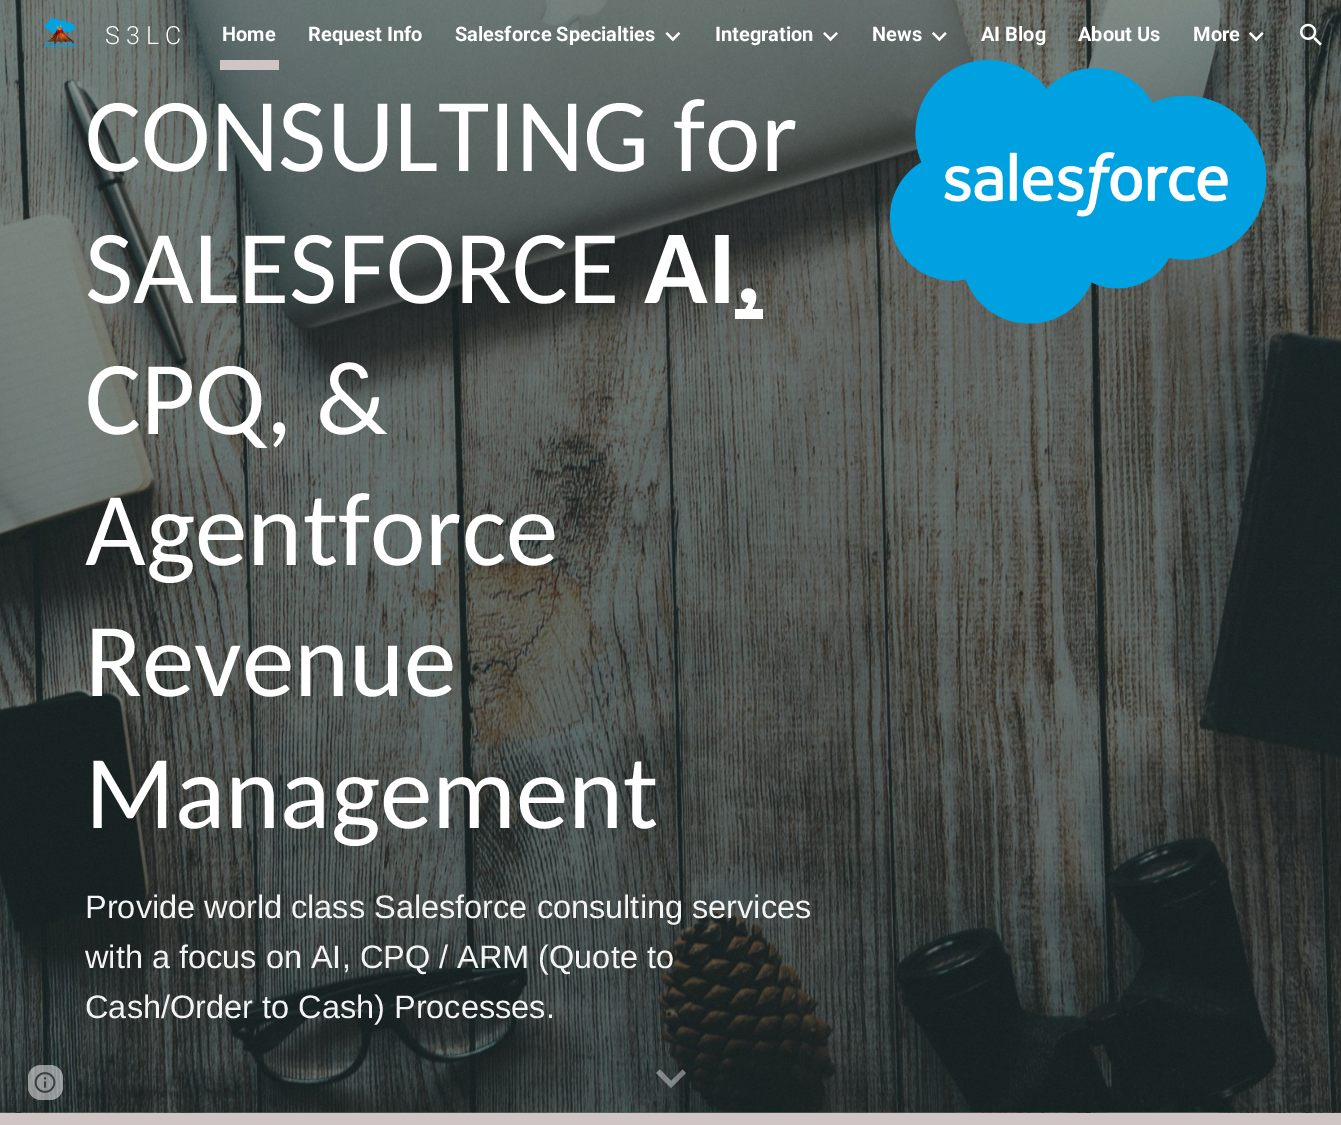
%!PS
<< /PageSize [1341 1125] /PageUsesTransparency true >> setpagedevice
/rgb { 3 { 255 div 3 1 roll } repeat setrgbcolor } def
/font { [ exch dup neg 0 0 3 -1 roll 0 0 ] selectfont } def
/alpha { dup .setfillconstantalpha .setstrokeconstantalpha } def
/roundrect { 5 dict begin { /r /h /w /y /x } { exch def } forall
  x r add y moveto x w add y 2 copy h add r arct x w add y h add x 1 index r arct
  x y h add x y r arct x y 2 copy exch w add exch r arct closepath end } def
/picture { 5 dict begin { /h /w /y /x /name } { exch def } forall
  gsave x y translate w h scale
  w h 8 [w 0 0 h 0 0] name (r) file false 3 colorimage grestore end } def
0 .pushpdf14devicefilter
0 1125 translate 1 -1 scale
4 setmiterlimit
255 255 255 rgb
0 0 1341 1125 rectfill
(img/7.rgb) 0 0 1341 1113 picture
(img/1.rgb) 44 18 32 30 picture
207 197 197 rgb
220 60 59 10 rectfill
(img/2.rgb) 665 32 16 10 picture
(img/3.rgb) 823 32 15 10 picture
(img/4.rgb) 932 32 15 10 picture
(img/5.rgb) 1248 32 16 10 picture
(img/6.rgb) 1300 23 22 23 picture
0 1113 1341 12 rectfill
255 255 255 rgb
735 309 28 10 rectfill
(img/8.rgb) 890 60 377 264 picture
0.4 alpha
660 1069.5 moveto 671 1081 lineto 682.5 1069.5 lineto 686 1073 lineto 671 1088 lineto 656 1073 lineto closepath fill
0.5 alpha
28 1065 35 35 13 roundrect fill
1 alpha
(img/9.rgb) 34 1072 22 21 picture
/Roboto-Light 25 font
105 44 moveto (S 3 L C) show
/Roboto-Bold 20 font
[
  [(Home) 222 41]
  [(Request Info) 308 41]
  [(Salesforce Specialties) 455 41]
  [(Integration) 715 41]
  [(News) 872 41]
  [(AI Blog) 981 41]
  [(About Us) 1078 41]
  [(More) 1193 41]
] { aload pop moveto show } forall
/Carlito-Regular 105 font
85 171 moveto (CONSULTING for) show
85 303 moveto (SALESFORCE) show
/Carlito-Bold 105 font
644 303 moveto (AI) show
735 303 moveto (,) show
/Carlito-Regular 105 font
[
  [(CPQ, &) 85 434]
  [(Agentforce) 85 565]
  [(Revenue) 85 696]
  [(Management) 85 828]
] { aload pop moveto show } forall
/LiberationSans-Regular 32.5 font
243 243 243 rgb
[
  [(Provide world class Salesforce consulting services) 85 918]
  [(with a focus on AI, CPQ / ARM \(Quote to) 85 968]
  [(Cash/Order to Cash\) Processes.) 85 1018]
] { aload pop moveto show } forall
.poppdf14devicefilter showpage
